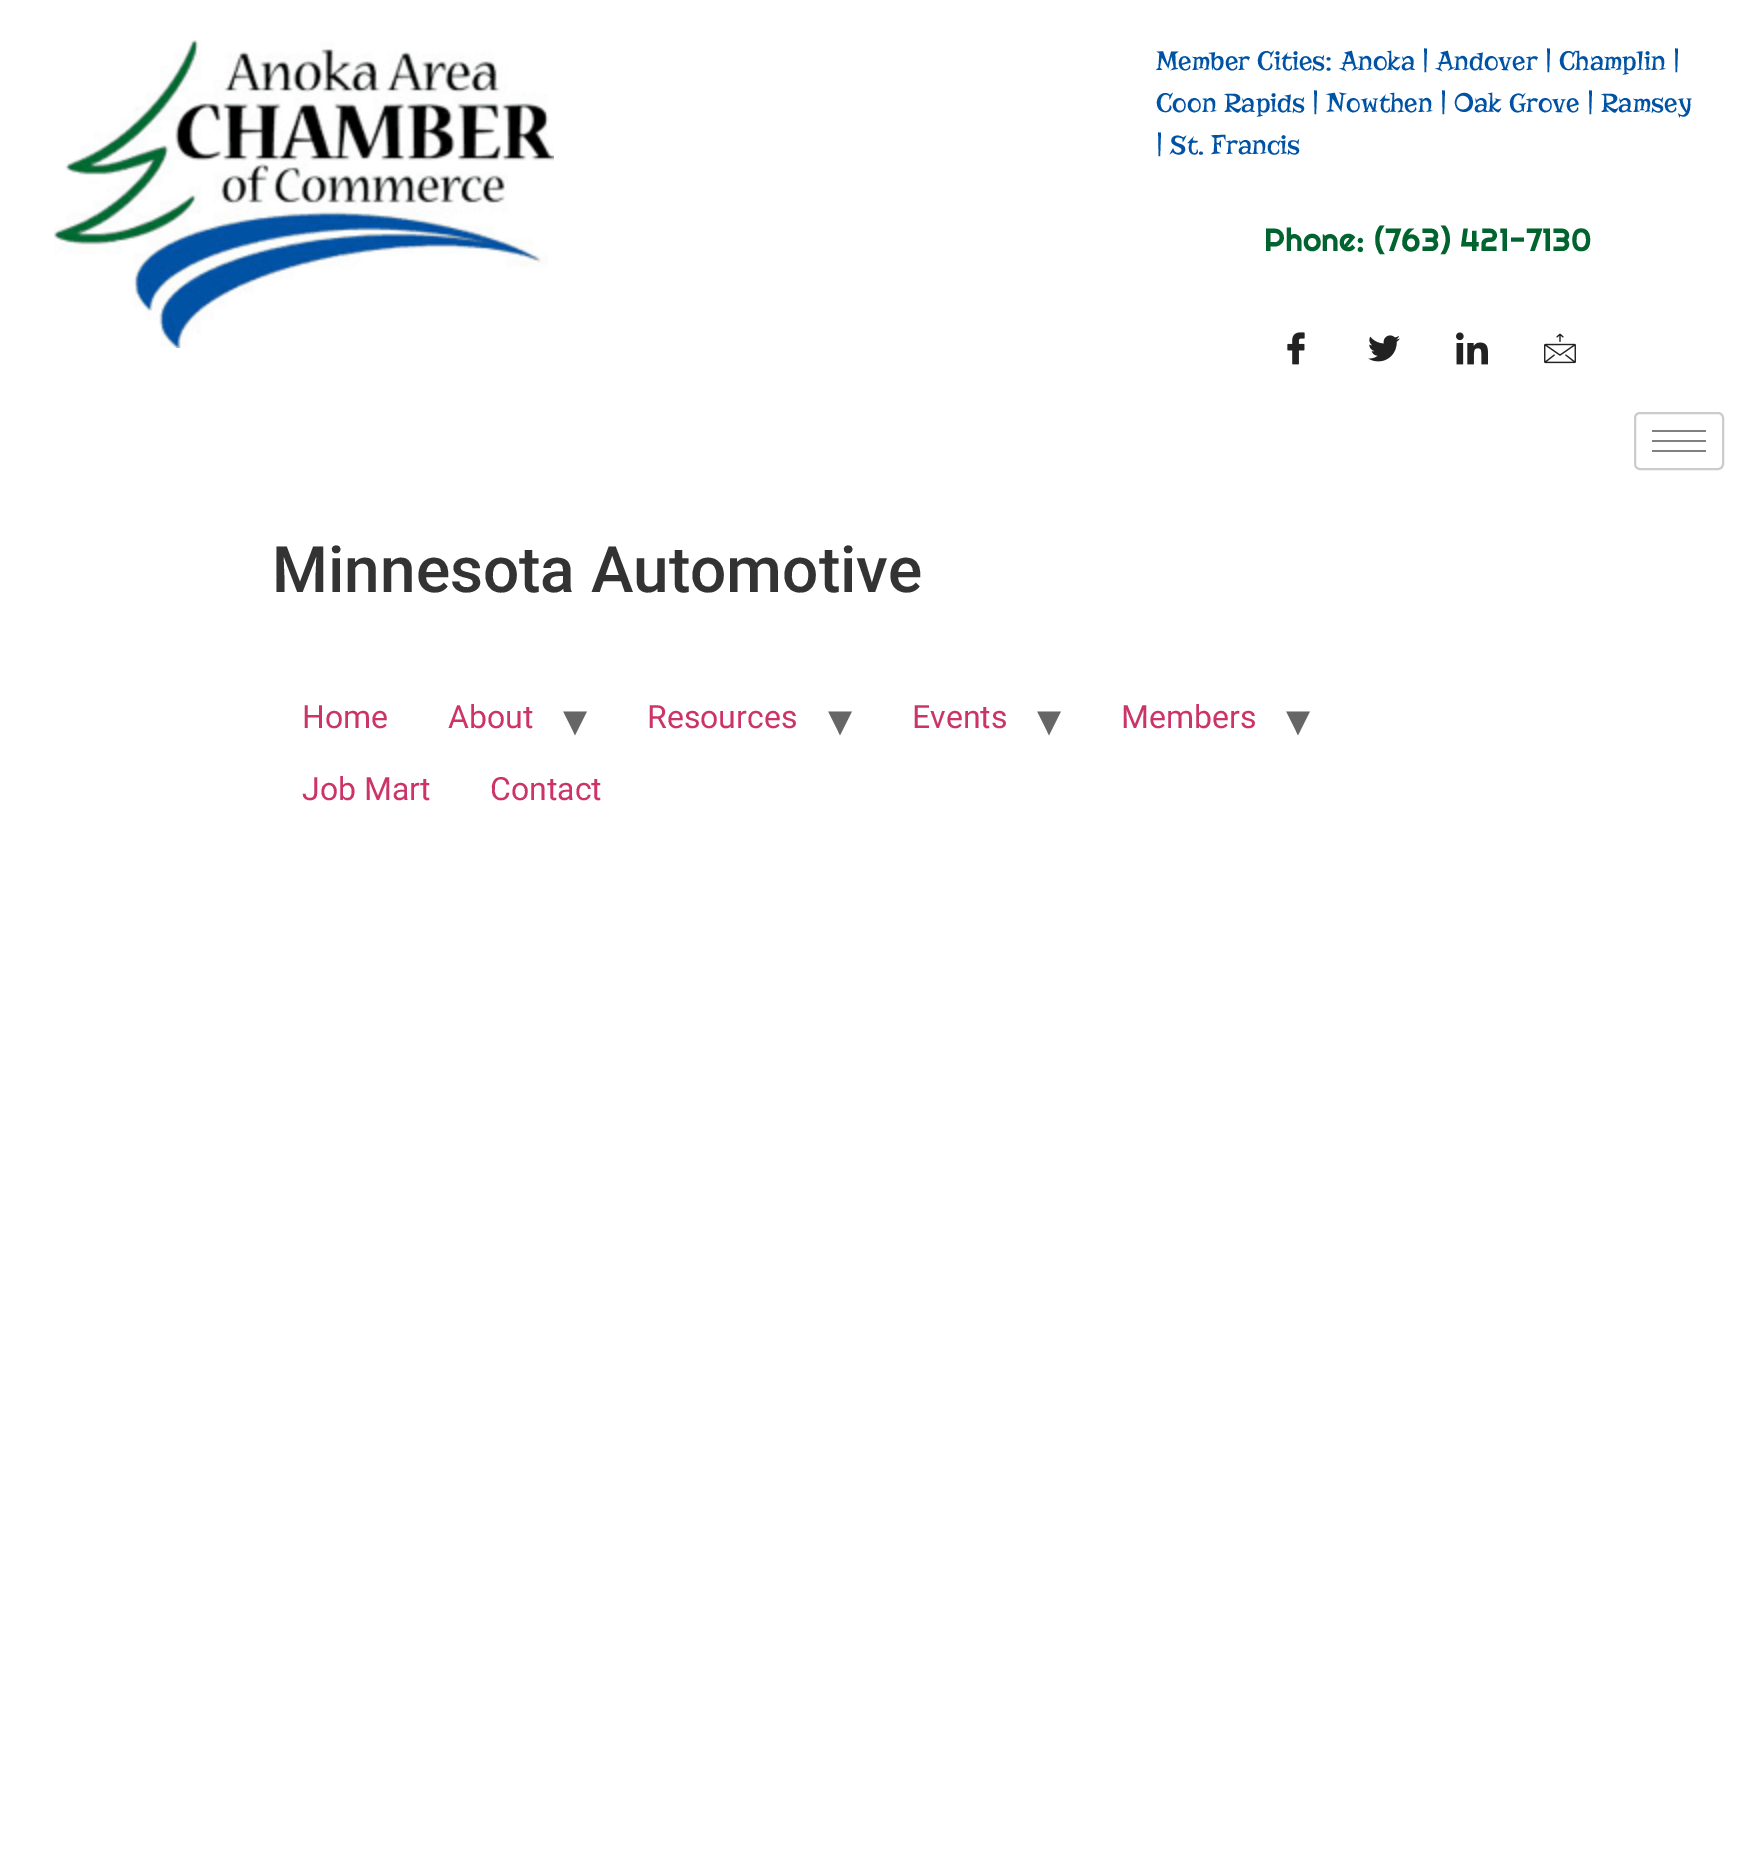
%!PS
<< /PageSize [1744 1852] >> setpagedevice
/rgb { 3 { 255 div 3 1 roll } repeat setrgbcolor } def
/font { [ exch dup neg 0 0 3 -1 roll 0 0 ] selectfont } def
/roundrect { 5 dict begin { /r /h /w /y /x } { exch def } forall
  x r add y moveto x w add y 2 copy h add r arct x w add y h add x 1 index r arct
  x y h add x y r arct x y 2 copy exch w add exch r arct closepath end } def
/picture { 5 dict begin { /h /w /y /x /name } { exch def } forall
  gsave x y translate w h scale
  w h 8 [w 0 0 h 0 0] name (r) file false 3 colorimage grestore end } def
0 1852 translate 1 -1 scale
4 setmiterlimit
255 255 255 rgb
0 0 1744 1852 rectfill
(img/1.rgb) 54 40 500 308 picture
(img/2.rgb) 1287 332 18 33 picture
(img/3.rgb) 1368 335 32 27 picture
(img/4.rgb) 1456 332 32 33 picture
(img/5.rgb) 1544 333 32 31 picture
204 204 204 rgb
2 setlinewidth
1635 413 88 56 5 roundrect stroke
[
  [1652 430 54 2 128 128 128]
  [1652 440 54 2 128 128 128]
  [1652 450 54 2 128 128 128]
] { aload pop rgb rectfill } forall
/Risque-Regular 28 font
0 82 164 rgb
[
  [(Member Cities: Anoka | Andover | Champlin |) 1156 70]
  [(Coon Rapids | Nowthen | Oak Grove | Ramsey) 1156 112]
  [(| St. Francis) 1156 154]
] { aload pop moveto show } forall
/Righteous-Regular 32 font
1 100 46 rgb
1264 251 moveto (Phone: \(763\) 421-7130) show
/Roboto-Medium 64 font
51 51 51 rgb
272 592 moveto (Minnesota Automotive) show
/Roboto-Regular 32 font
204 51 102 rgb
302 728 moveto (Home) show
448 728 moveto (About) show
/DejaVuSans-Regular 48 font
102 102 102 rgb
563 736 moveto (▾) show
/Roboto-Regular 32 font
204 51 102 rgb
647 728 moveto (Resources) show
/DejaVuSans-Regular 48 font
102 102 102 rgb
828 736 moveto (▾) show
/Roboto-Regular 32 font
204 51 102 rgb
912 728 moveto (Events) show
/DejaVuSans-Regular 48 font
102 102 102 rgb
1037 736 moveto (▾) show
/Roboto-Regular 32 font
204 51 102 rgb
1121 728 moveto (Members) show
/DejaVuSans-Regular 48 font
102 102 102 rgb
1286 736 moveto (▾) show
/Roboto-Regular 32 font
204 51 102 rgb
302 800 moveto (Job Mart) show
490 800 moveto (Contact) show
showpage
